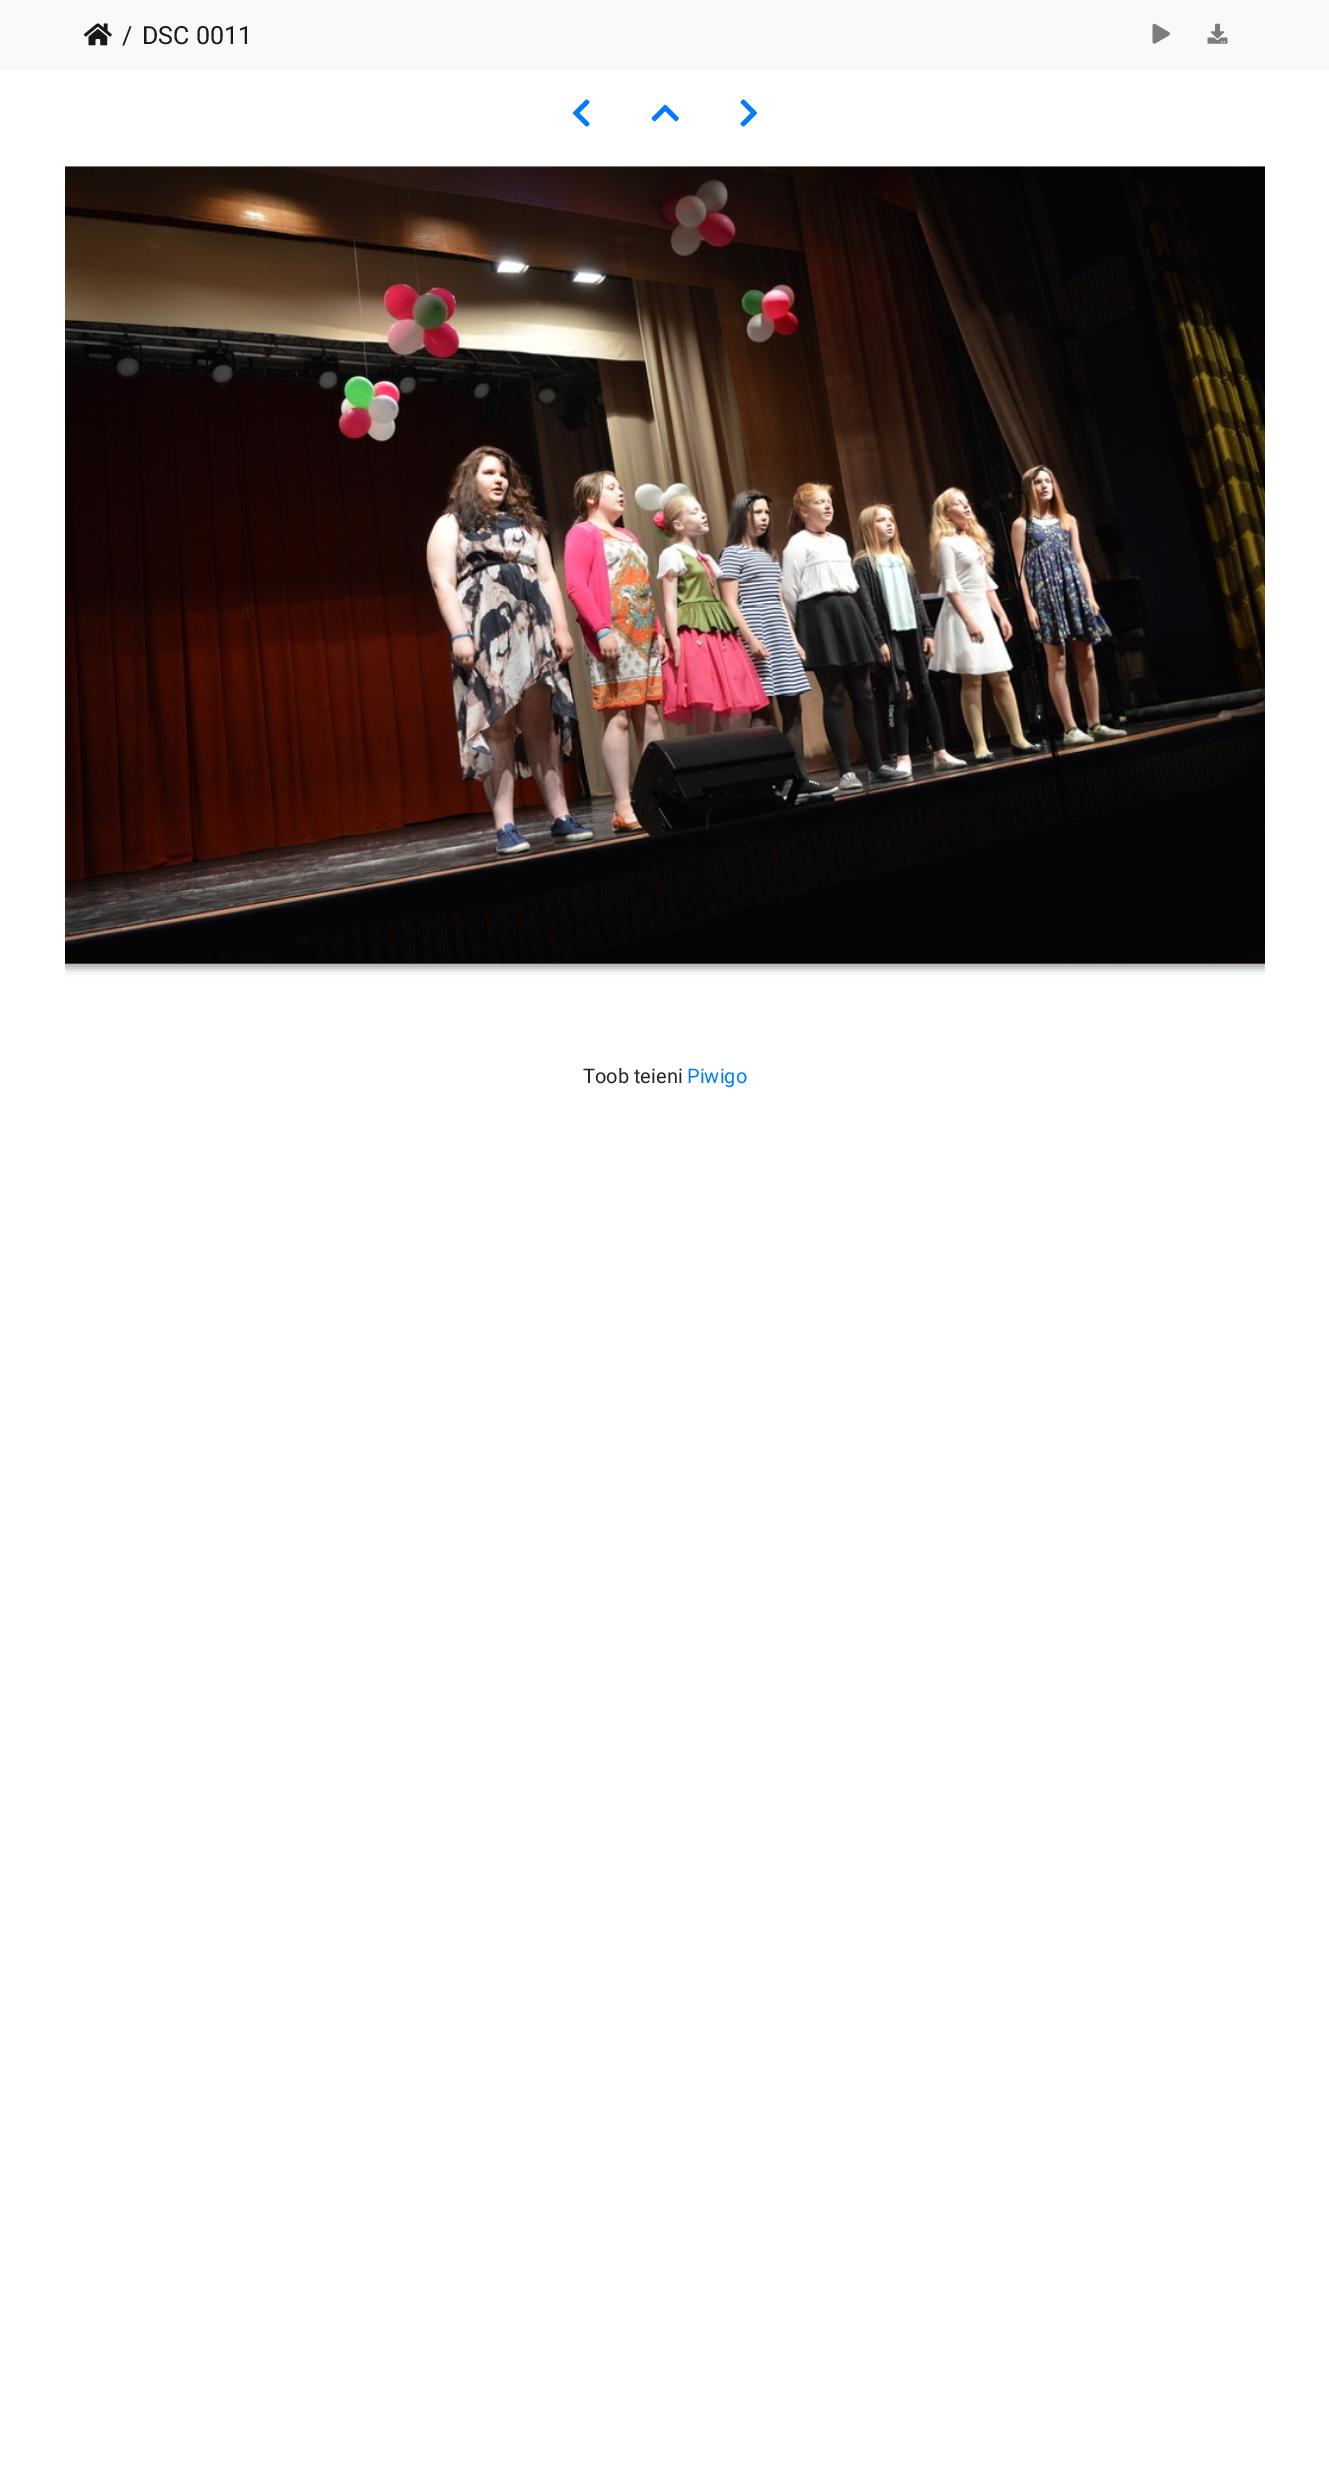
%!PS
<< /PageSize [1329 2471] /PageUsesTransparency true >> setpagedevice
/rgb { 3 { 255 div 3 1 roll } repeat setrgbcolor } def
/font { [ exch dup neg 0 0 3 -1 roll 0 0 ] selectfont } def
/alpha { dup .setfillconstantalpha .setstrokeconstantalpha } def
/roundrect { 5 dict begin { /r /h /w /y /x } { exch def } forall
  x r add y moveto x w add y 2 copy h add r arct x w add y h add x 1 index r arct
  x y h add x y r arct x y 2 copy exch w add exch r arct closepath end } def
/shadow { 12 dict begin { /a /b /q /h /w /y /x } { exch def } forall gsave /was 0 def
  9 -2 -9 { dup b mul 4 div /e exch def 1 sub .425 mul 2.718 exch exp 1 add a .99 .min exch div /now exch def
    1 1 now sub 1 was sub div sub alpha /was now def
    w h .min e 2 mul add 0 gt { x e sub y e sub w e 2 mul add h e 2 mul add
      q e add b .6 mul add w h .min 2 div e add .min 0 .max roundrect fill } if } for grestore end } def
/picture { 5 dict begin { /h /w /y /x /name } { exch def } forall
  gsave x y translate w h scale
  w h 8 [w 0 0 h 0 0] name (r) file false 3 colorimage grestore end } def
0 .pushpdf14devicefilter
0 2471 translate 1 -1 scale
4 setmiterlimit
255 255 255 rgb
0 0 1329 2471 rectfill
248 249 250 rgb
0 0 1329 70 rectfill
(img/1.rgb) 84 23 28 23 picture
(img/2.rgb) 1152 23 18 21 picture
(img/3.rgb) 1207 23 21 21 picture
(img/4.rgb) 573 99 17 28 picture
(img/5.rgb) 651 104 28 18 picture
(img/6.rgb) 740 99 17 28 picture
gsave
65 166 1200 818 rectclip
0 0 0 rgb
65 170 1200 798 0 4 0.23 shadow
65 170 1200 798 0 4 0.16 shadow
grestore
(img/7.rgb) 65 166 1200 798 picture
/Roboto-Regular 25 font
25 25 25 rgb
122 44 moveto (/) show
142 44 moveto (DSC 0011) show
/Roboto-Regular 20 font
33 37 41 rgb
583 1083 moveto (Toob teieni) show
0 123 255 rgb
687 1083 moveto (Piwigo) show
.poppdf14devicefilter showpage
